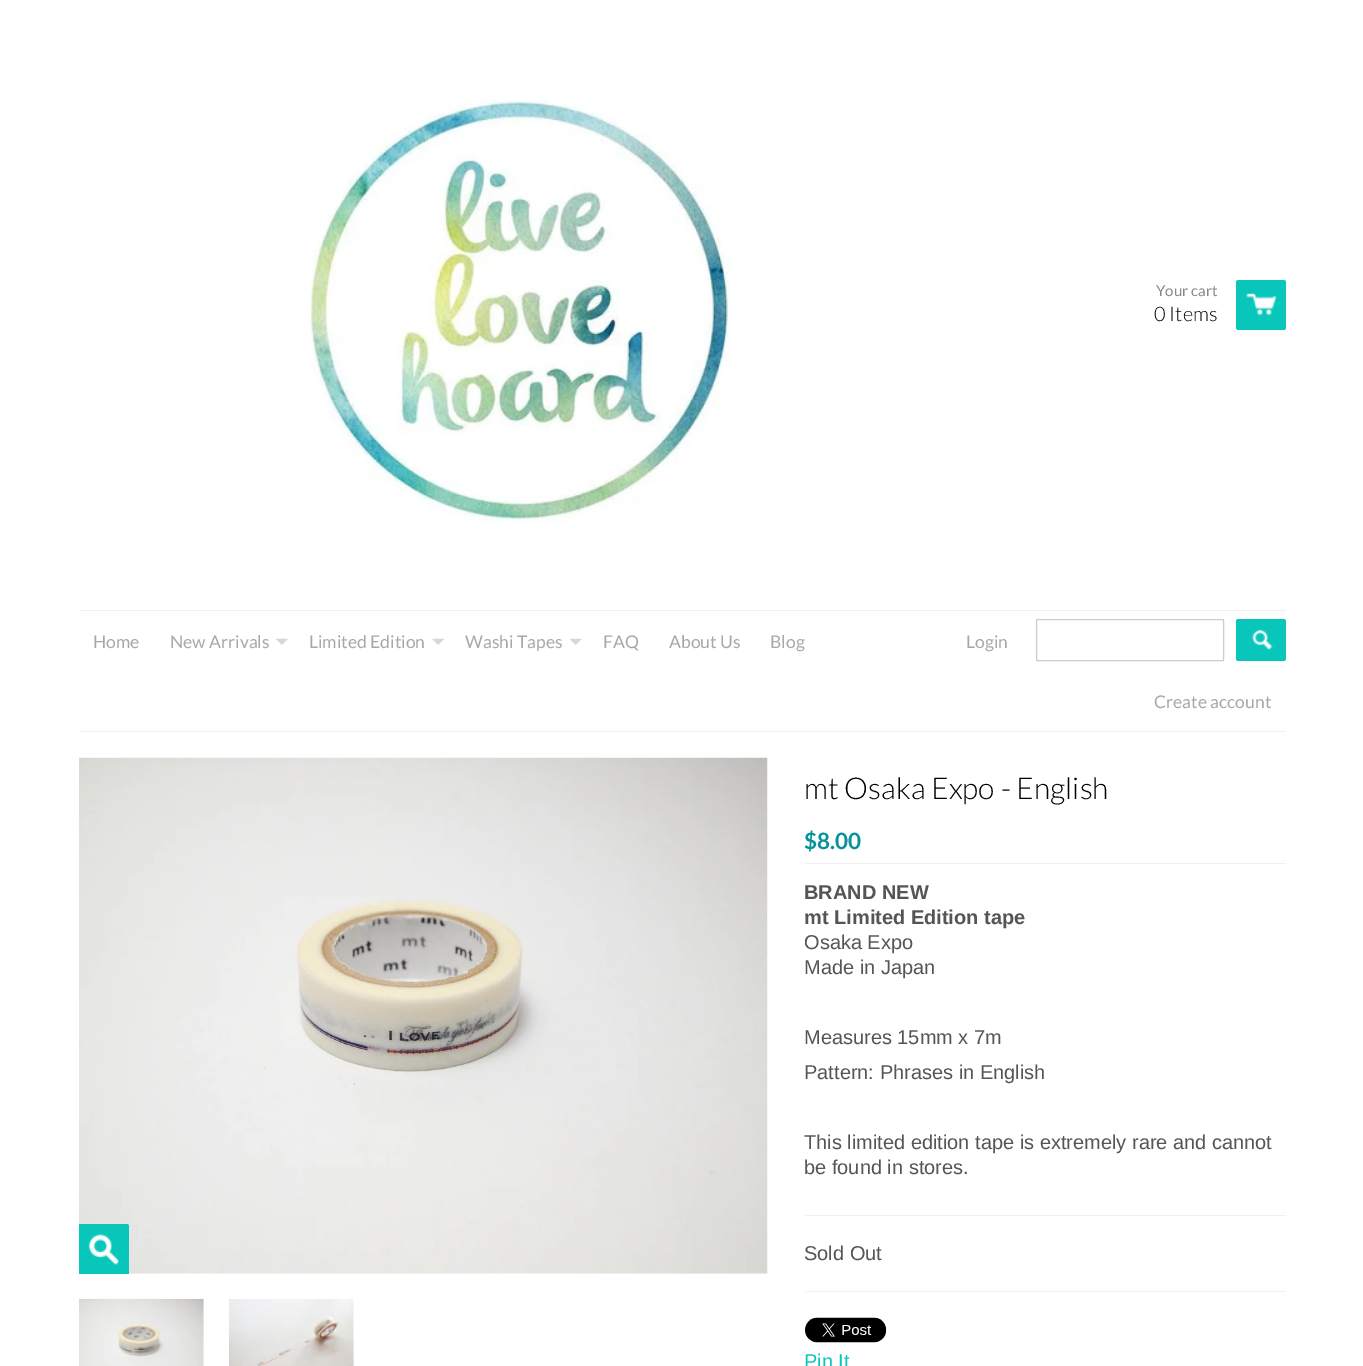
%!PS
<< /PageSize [1363 1366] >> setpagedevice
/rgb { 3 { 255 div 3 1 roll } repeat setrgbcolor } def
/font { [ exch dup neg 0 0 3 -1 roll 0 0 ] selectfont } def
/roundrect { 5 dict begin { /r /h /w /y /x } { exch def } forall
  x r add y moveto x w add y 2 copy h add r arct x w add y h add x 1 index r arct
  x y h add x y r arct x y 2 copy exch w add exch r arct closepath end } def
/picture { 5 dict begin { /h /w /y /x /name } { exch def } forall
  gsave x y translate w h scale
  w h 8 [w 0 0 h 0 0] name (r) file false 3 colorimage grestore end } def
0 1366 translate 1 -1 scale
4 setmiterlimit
255 255 255 rgb
0 0 1363 1366 rectfill
(img/1.rgb) 309 99 421 426 picture
8 199 186 rgb
1236 280 50 50 2.5 roundrect fill
(img/2.rgb) 1246 293 31 23 picture
240 240 240 rgb
79 610 1207 1 rectfill
79 731 1207 1 rectfill
(img/3.rgb) 276 638 12 7 picture
(img/4.rgb) 432 638 12 7 picture
(img/5.rgb) 570 638 12 8 picture
204 204 204 rgb
1036.5 619.5 187 41 0.5 roundrect stroke
8 199 186 rgb
1236 619 50 42 2.5 roundrect fill
(img/6.rgb) 1252 629 21 21 picture
(img/7.rgb) 79 757 689 517 picture
79 1224 moveto 126.5 1224 lineto 128 1224 129 1225 129 1226.5 curveto 129 1274 lineto 79 1274 lineto closepath fill
(img/8.rgb) 88 1234 31 31 picture
(img/9.rgb) 79 1298 125 68 picture
(img/10.rgb) 229 1299 125 67 picture
[
  [805 863 481 1 240 240 240]
  [805 1215 481 1 240 240 240]
  [805 1291 481 1 240 240 240]
] { aload pop rgb rectfill } forall
(img/11.rgb) 805 1317 82 26 picture
/Lato-Regular 15 font
136 136 136 rgb
1156 296 moveto (Your cart) show
/Lato-Light 20 font
0 0 0 rgb
1154 321 moveto (0 Items) show
/Lato-Regular 17.5 font
168 168 168 rgb
[
  [(Home) 93 648]
  [(New Arrivals) 170 648]
  [(Limited Edition) 309 648]
  [(Washi Tapes) 465 648]
  [(FAQ) 603 648]
  [(About Us) 669 648]
  [(Blog) 770 648]
  [(Login) 966 648]
  [(Create account) 1154 708]
] { aload pop moveto show } forall
/Lato-Light 30 font
0 0 0 rgb
804 799 moveto (mt Osaka Expo - English) show
/Lato-Bold 22.5 font
6 146 153 rgb
804 849 moveto ($8.00) show
/LiberationSans-Bold 20 font
85 85 85 rgb
804 899 moveto (BRAND NEW) show
804 924 moveto (mt Limited Edition tape) show
/LiberationSans-Regular 20 font
[
  [(Osaka Expo) 804 949]
  [(Made in Japan) 804 974]
  [(Measures 15mm x 7m) 804 1044]
  [(Pattern: Phrases in English) 804 1079]
  [(This limited edition tape is extremely rare and cannot) 804 1149]
  [(be found in stores.) 804 1174]
  [(Sold Out) 804 1260]
] { aload pop moveto show } forall
8 199 186 rgb
804 1368 moveto (Pin It) show
showpage
